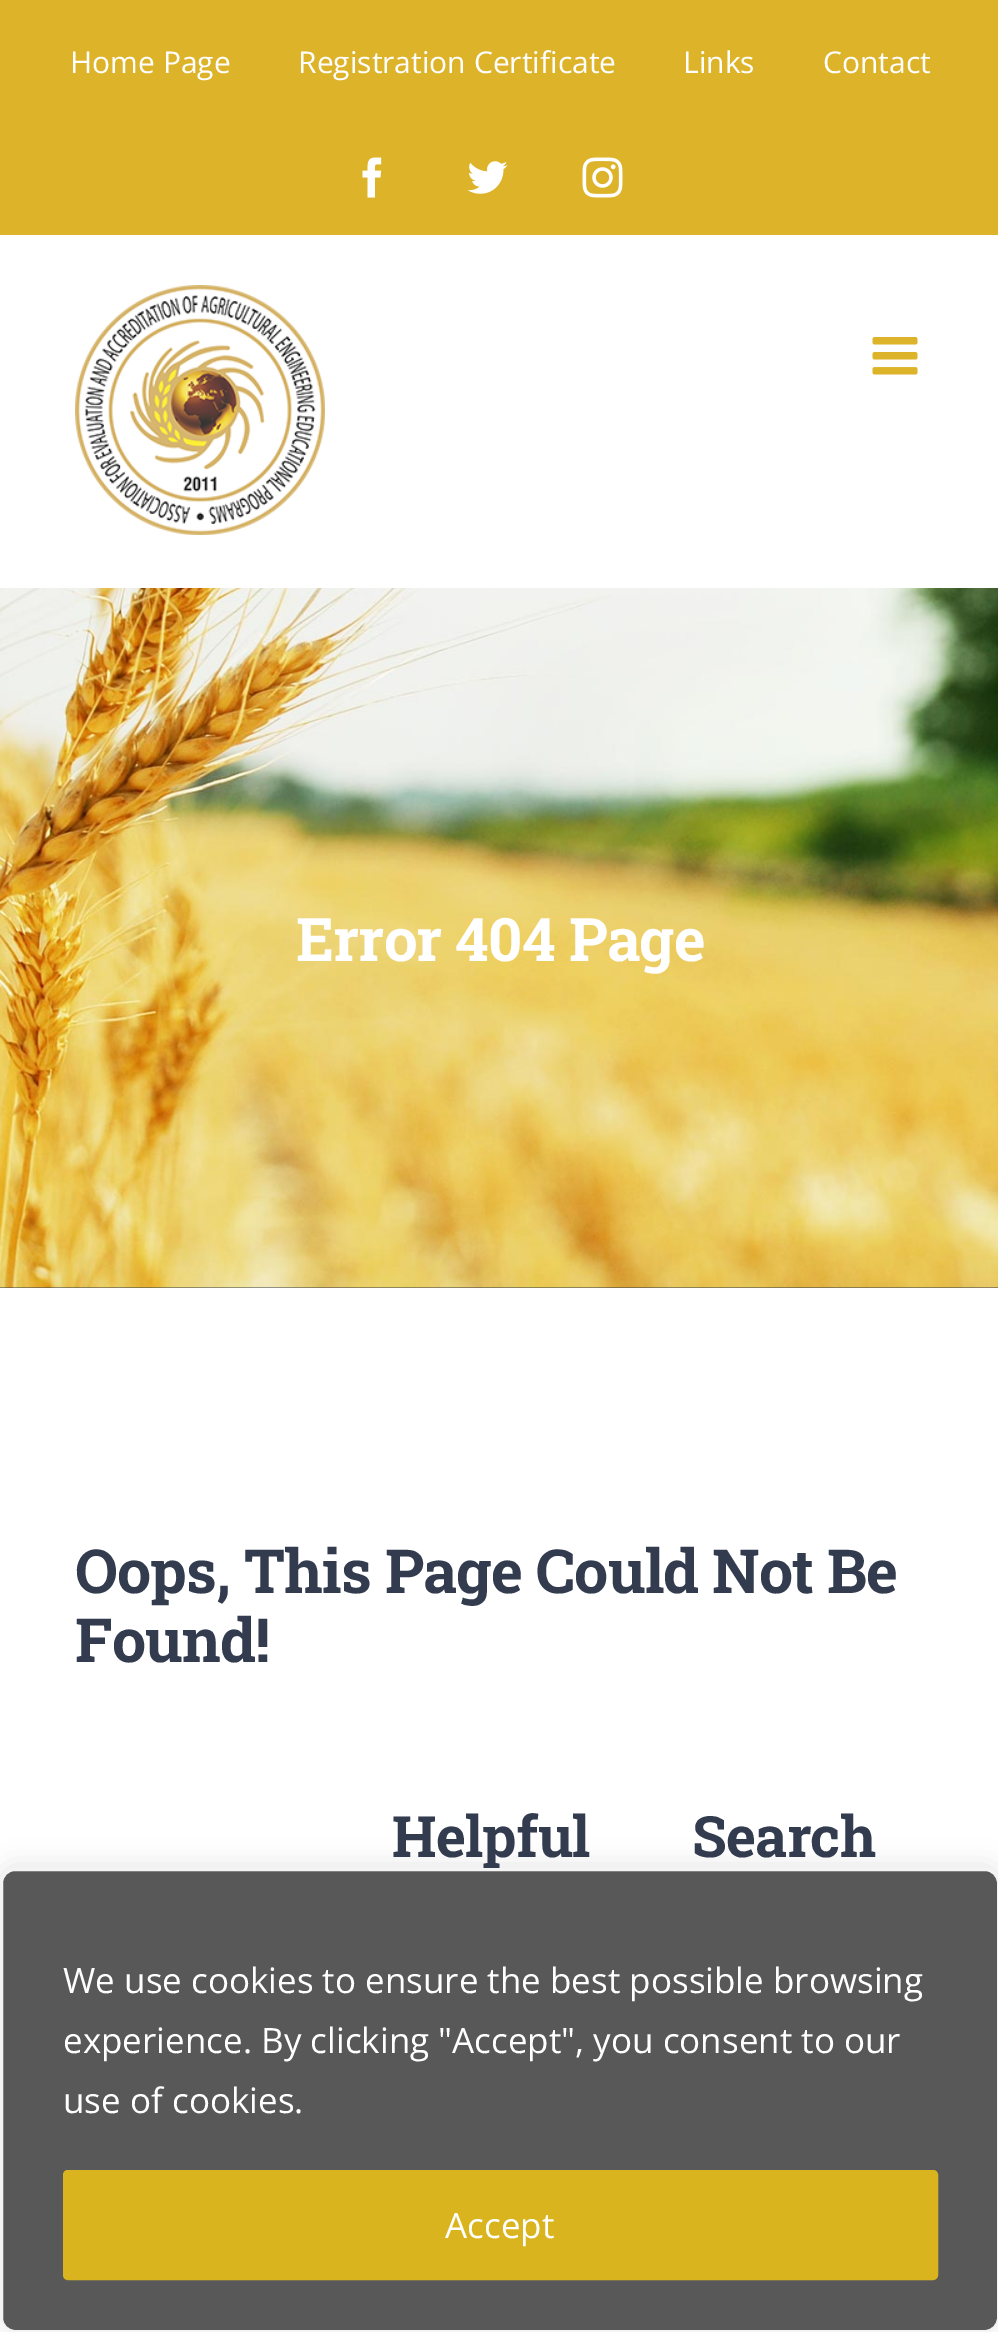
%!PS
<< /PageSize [998 2332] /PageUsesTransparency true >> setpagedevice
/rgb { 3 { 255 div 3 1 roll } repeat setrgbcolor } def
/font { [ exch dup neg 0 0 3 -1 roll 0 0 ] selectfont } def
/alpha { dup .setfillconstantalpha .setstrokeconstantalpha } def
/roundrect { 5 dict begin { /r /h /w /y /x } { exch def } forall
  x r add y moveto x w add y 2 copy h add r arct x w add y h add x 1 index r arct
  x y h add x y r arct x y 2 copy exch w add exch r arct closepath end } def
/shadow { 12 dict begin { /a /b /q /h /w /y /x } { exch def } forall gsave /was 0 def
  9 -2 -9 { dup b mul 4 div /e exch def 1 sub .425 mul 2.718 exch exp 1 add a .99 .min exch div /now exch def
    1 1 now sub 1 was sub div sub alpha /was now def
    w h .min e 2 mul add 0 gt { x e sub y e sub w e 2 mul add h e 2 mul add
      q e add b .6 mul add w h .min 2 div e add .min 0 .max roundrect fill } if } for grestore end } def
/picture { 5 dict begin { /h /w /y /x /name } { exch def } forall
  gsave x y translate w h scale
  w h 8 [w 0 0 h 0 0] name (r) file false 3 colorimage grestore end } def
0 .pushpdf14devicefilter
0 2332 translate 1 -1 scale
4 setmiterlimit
255 255 255 rgb
0 0 998 2332 rectfill
221 179 42 rgb
0 0 998 235 rectfill
(img/1.rgb) 362 157 20 41 picture
(img/2.rgb) 467 161 41 33 picture
(img/3.rgb) 582 157 41 41 picture
(img/4.rgb) 75 285 250 250 picture
(img/5.rgb) 872 337 46 38 picture
51 60 78 rgb
0 1287 998 1 rectfill
(img/6.rgb) 0 588 998 700 picture
172 171 171 rgb
0 1865 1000 465 15 12.5 0.3 shadow
/OpenSans-Regular 30 font
255 255 255 rgb
[
  [(Home Page) 70 73]
  [(Registration Certificate) 298 73]
  [(Links) 683 73]
  [(Contact) 823 73]
] { aload pop moveto show } forall
/RobotoSlab-Bold 60 font
296 961 moveto -0.9 0 (Error 404 Page) ashow
/RobotoSlab-Bold 60.75 font
51 60 78 rgb
75 1593 moveto -0.9 0 (Oops, This Page Could Not Be) ashow
75 1662 moveto -0.9 0 (Found!) ashow
/RobotoSlab-Bold 57 font
392 1857 moveto -0.75 0 (Helpful) ashow
692 1857 moveto -0.75 0 (Search) ashow
88 88 88 rgb
1.5 1869.5 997 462 13.5 roundrect gsave fill grestore
244 244 244 rgb
3 setlinewidth
stroke
/OpenSans-Regular 35 font
255 255 255 rgb
[
  [(We use cookies to ensure the best possible browsing) 63 1993]
  [(experience. By clicking "Accept", you consent to our) 63 2053]
  [(use of cookies.) 63 2113]
] { aload pop moveto show } forall
218 180 31 rgb
65.5 2172.5 870 105 2.5 roundrect gsave fill grestore
5 setlinewidth
stroke
255 255 255 rgb
445 2238 moveto (Accept) show
.poppdf14devicefilter showpage
